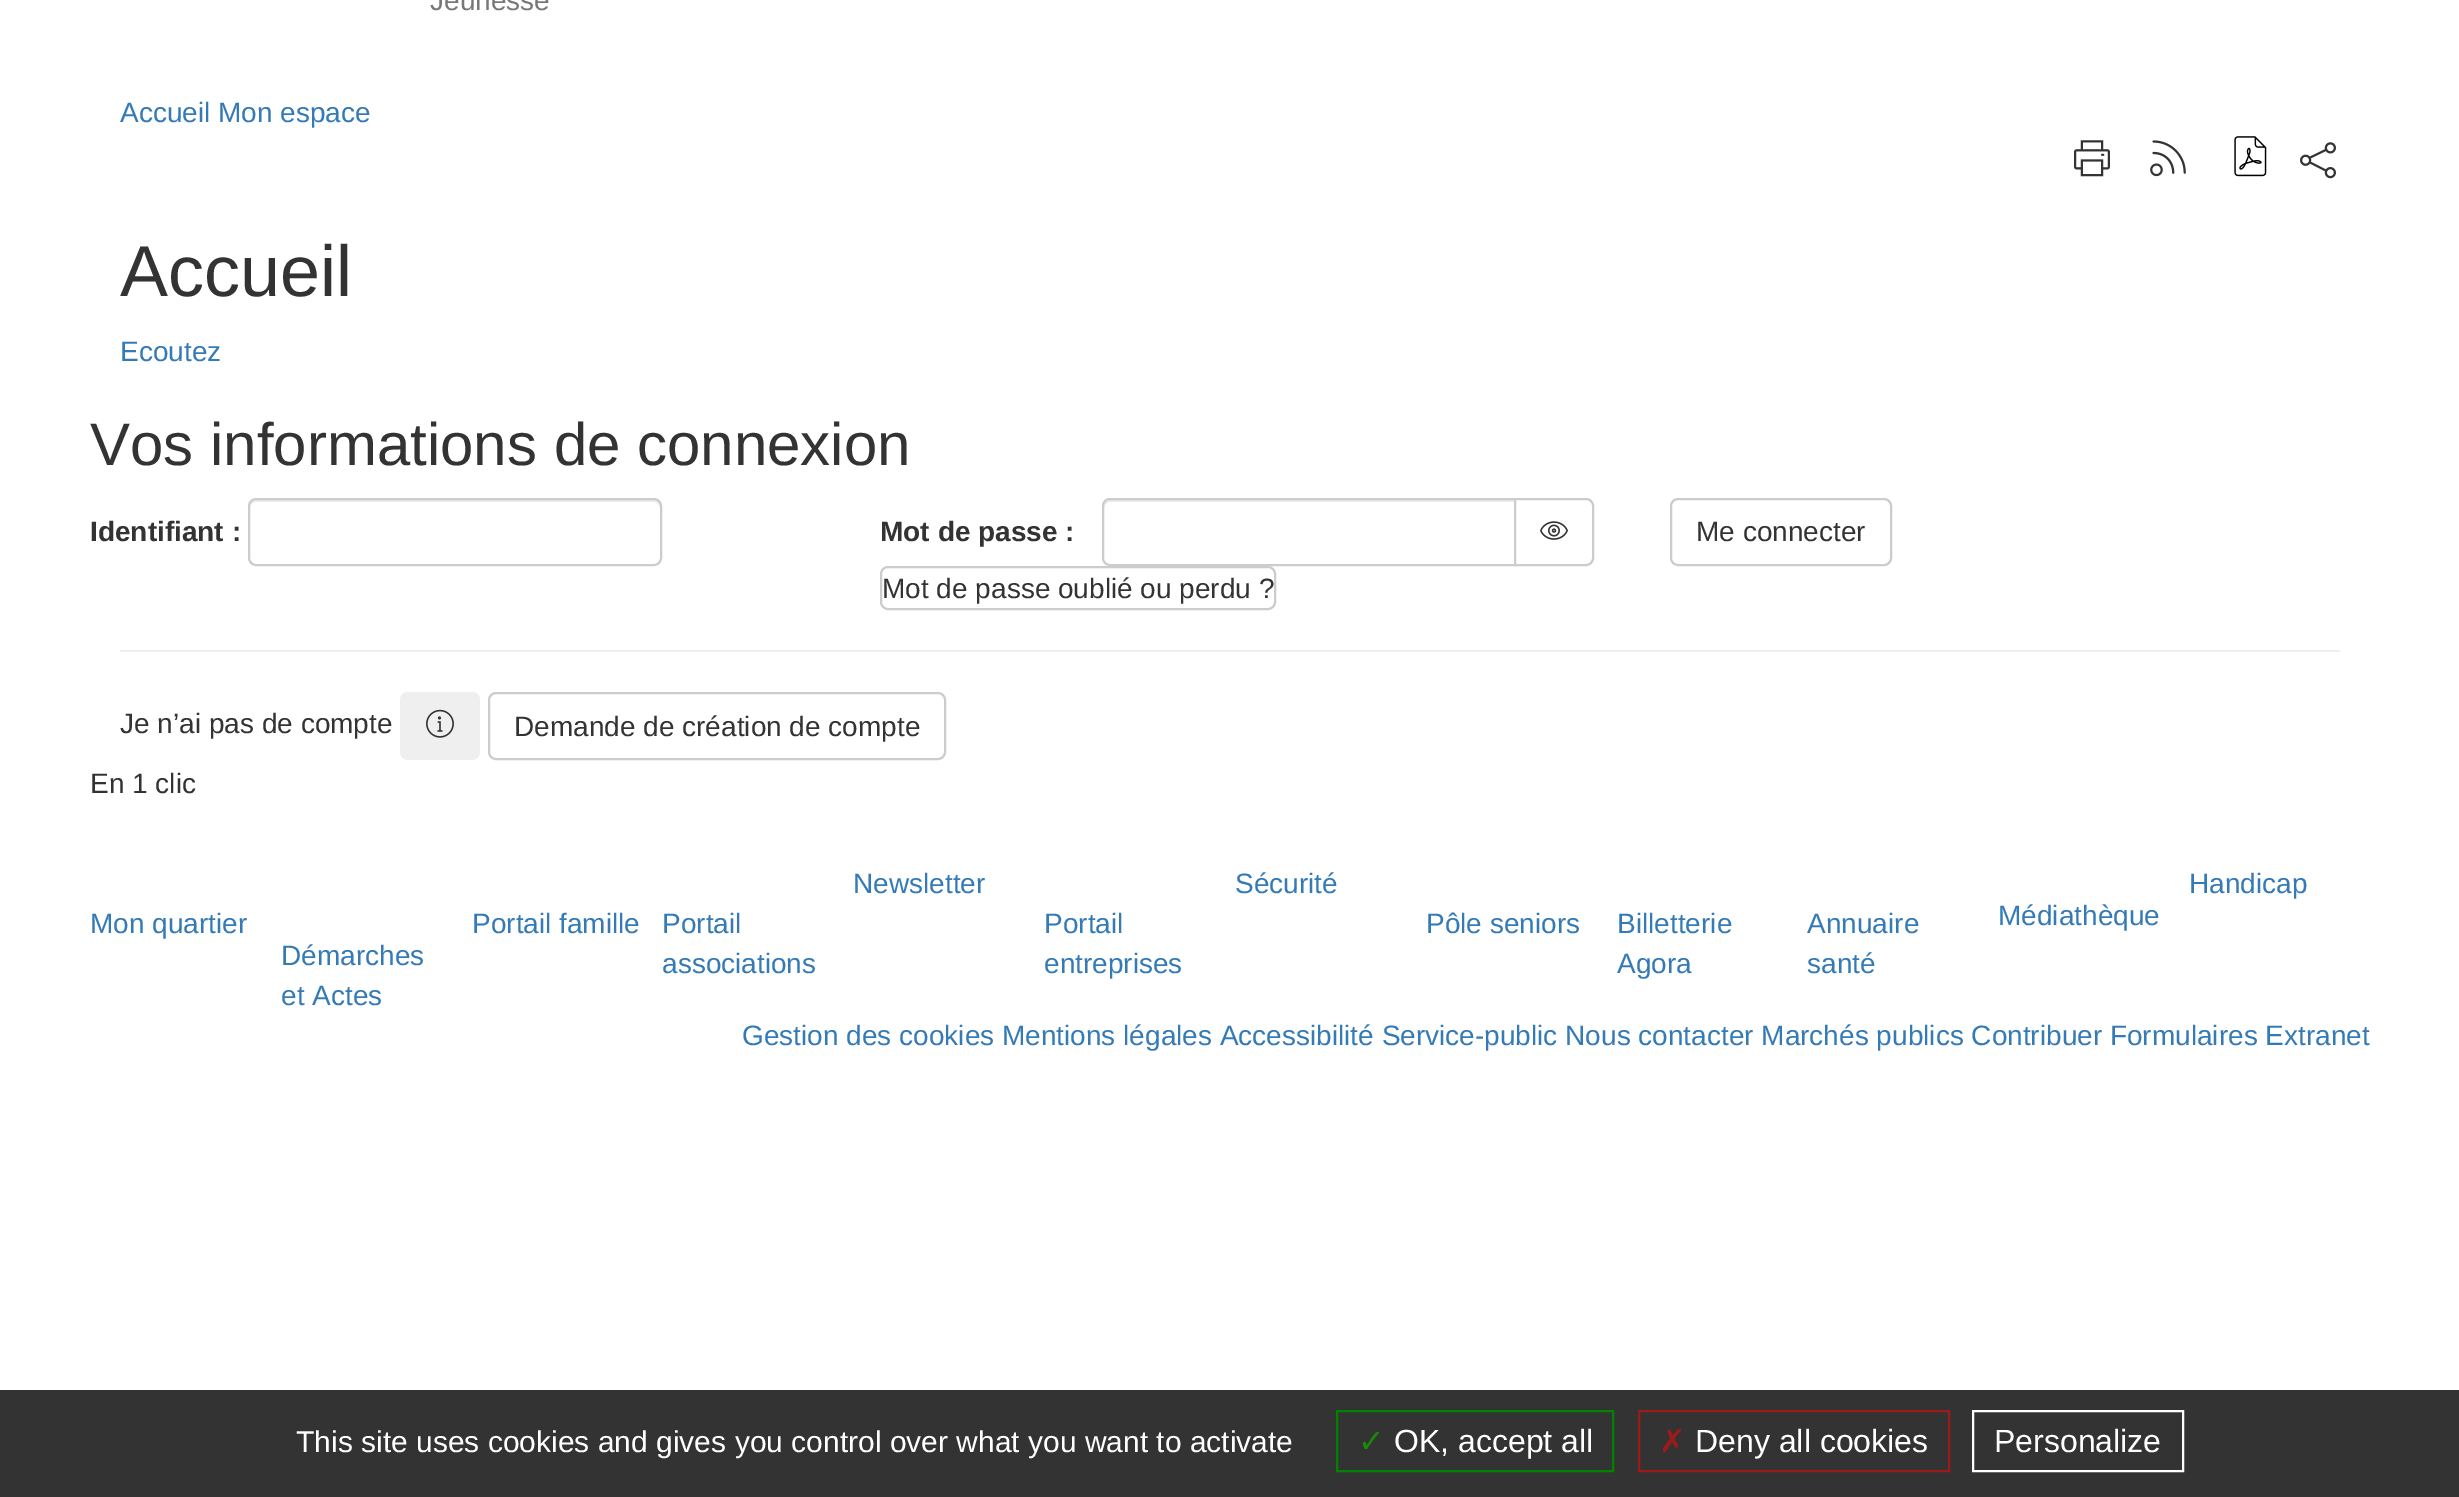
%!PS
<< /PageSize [2459 1497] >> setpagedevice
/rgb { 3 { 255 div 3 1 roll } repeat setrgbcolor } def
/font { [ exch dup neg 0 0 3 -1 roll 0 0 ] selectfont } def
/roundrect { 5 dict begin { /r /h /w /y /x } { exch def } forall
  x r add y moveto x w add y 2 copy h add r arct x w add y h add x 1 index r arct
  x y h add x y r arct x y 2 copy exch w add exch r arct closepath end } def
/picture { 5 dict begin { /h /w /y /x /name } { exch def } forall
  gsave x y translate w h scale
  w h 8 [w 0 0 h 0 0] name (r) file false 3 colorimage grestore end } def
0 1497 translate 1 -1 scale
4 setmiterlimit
255 255 255 rgb
0 0 2459 1497 rectfill
(img/1.rgb) 2074 140 36 37 picture
(img/2.rgb) 2150 140 36 37 picture
(img/3.rgb) 2234 136 33 41 picture
(img/4.rgb) 2300 142 36 37 picture
236 236 236 rgb
256 502 moveto 654 502 lineto 657 502 660 505 660 508 curveto 660 504 659 500 654 500 curveto 256 500 lineto 251 500 250 504 250 508 curveto 250 505 253 502 256 502 curveto closepath fill
204 204 204 rgb
2 setlinewidth
249 499 412 66 7 roundrect stroke
236 236 236 rgb
1110 502 moveto 1514 502 lineto 1514 500 lineto 1110 500 lineto 1107 500 1104 503 1104 506 curveto 1104 508 lineto 1104 505 1107 502 1110 502 curveto closepath fill
204 204 204 rgb
1110 499 moveto 1515 499 lineto 1515 565 lineto 1110 565 lineto 1106 565 1103 562 1103 558 curveto 1103 506 lineto 1103 502 1106 499 1110 499 curveto closepath stroke
255 255 255 rgb
1515 499 moveto 1586 499 lineto 1590 499 1593 502 1593 506 curveto 1593 558 lineto 1593 562 1590 565 1586 565 curveto 1515 565 lineto closepath gsave fill grestore
204 204 204 rgb
stroke
(img/5.rgb) 1540 521 28 19 picture
881 567 394 42 7 roundrect stroke
1671 499 220 66 7 roundrect stroke
238 238 238 rgb
120 650 2220 2 rectfill
239 239 239 rgb
400 692 80 68 8 roundrect fill
(img/6.rgb) 426 709 28 29 picture
204 204 204 rgb
489 693 456 66 7 roundrect stroke
51 51 51 rgb
0 1390 2459 107 rectfill
0 131 0 rgb
1337 1411 276 60 rectstroke
156 26 26 rgb
1639 1411 310 60 rectstroke
255 255 255 rgb
1973 1411 210 60 rectstroke
/LiberationSans-Regular 28 font
119 119 119 rgb
430 10 moveto (Jeunesse) show
51 122 183 rgb
120 122 moveto (Accueil Mon espace) show
/LiberationSans-Regular 72 font
51 51 51 rgb
120 296 moveto (Accueil) show
/LiberationSans-Regular 28 font
51 122 183 rgb
120 361 moveto (Ecoutez) show
/LiberationSans-Regular 60 font
51 51 51 rgb
90 465 moveto (Vos informations de connexion) show
/LiberationSans-Bold 28 font
90 541 moveto (Identifiant :) show
880 541 moveto (Mot de passe :) show
/LiberationSans-Regular 28 font
[
  [(Mot de passe oublié ou perdu ?) 882 598]
  [(Me connecter) 1696 541]
  [(Je n’ai pas de compte) 120 733]
  [(Demande de création de compte) 514 736]
  [(En 1 clic) 90 793]
] { aload pop moveto show } forall
51 122 183 rgb
[
  [(Newsletter) 853 893]
  [(Sécurité) 1235 893]
  [(Handicap) 2189 893]
  [(Mon quartier) 90 933]
  [(Démarches) 281 965]
  [(et Actes) 281 1005]
  [(Portail famille) 472 933]
  [(Portail) 662 933]
  [(associations) 662 973]
  [(Portail) 1044 933]
  [(entreprises) 1044 973]
  [(Pôle seniors) 1426 933]
  [(Billetterie) 1617 933]
  [(Agora) 1617 973]
  [(Annuaire) 1807 933]
  [(santé) 1807 973]
  [(Médiathèque) 1998 925]
  [(Gestion des cookies Mentions légales Accessibilité Service-public Nous contacter Marchés publics Contribuer Formulaires Extranet) 742 1045]
] { aload pop moveto show } forall
/LiberationSans-Regular 30 font
255 255 255 rgb
296 1452 moveto (This site uses cookies and gives you control over what you want to activate) show
/DejaVuSans-Regular 32 font
27 135 11 rgb
1358 1452 moveto (✓) show
/LiberationSans-Regular 32 font
255 255 255 rgb
1394 1452 moveto (OK, accept all) show
/DejaVuSans-Regular 32 font
156 26 26 rgb
1659 1452 moveto (✗) show
/LiberationSans-Regular 32 font
255 255 255 rgb
1695 1452 moveto (Deny all cookies) show
1994 1452 moveto (Personalize) show
showpage
